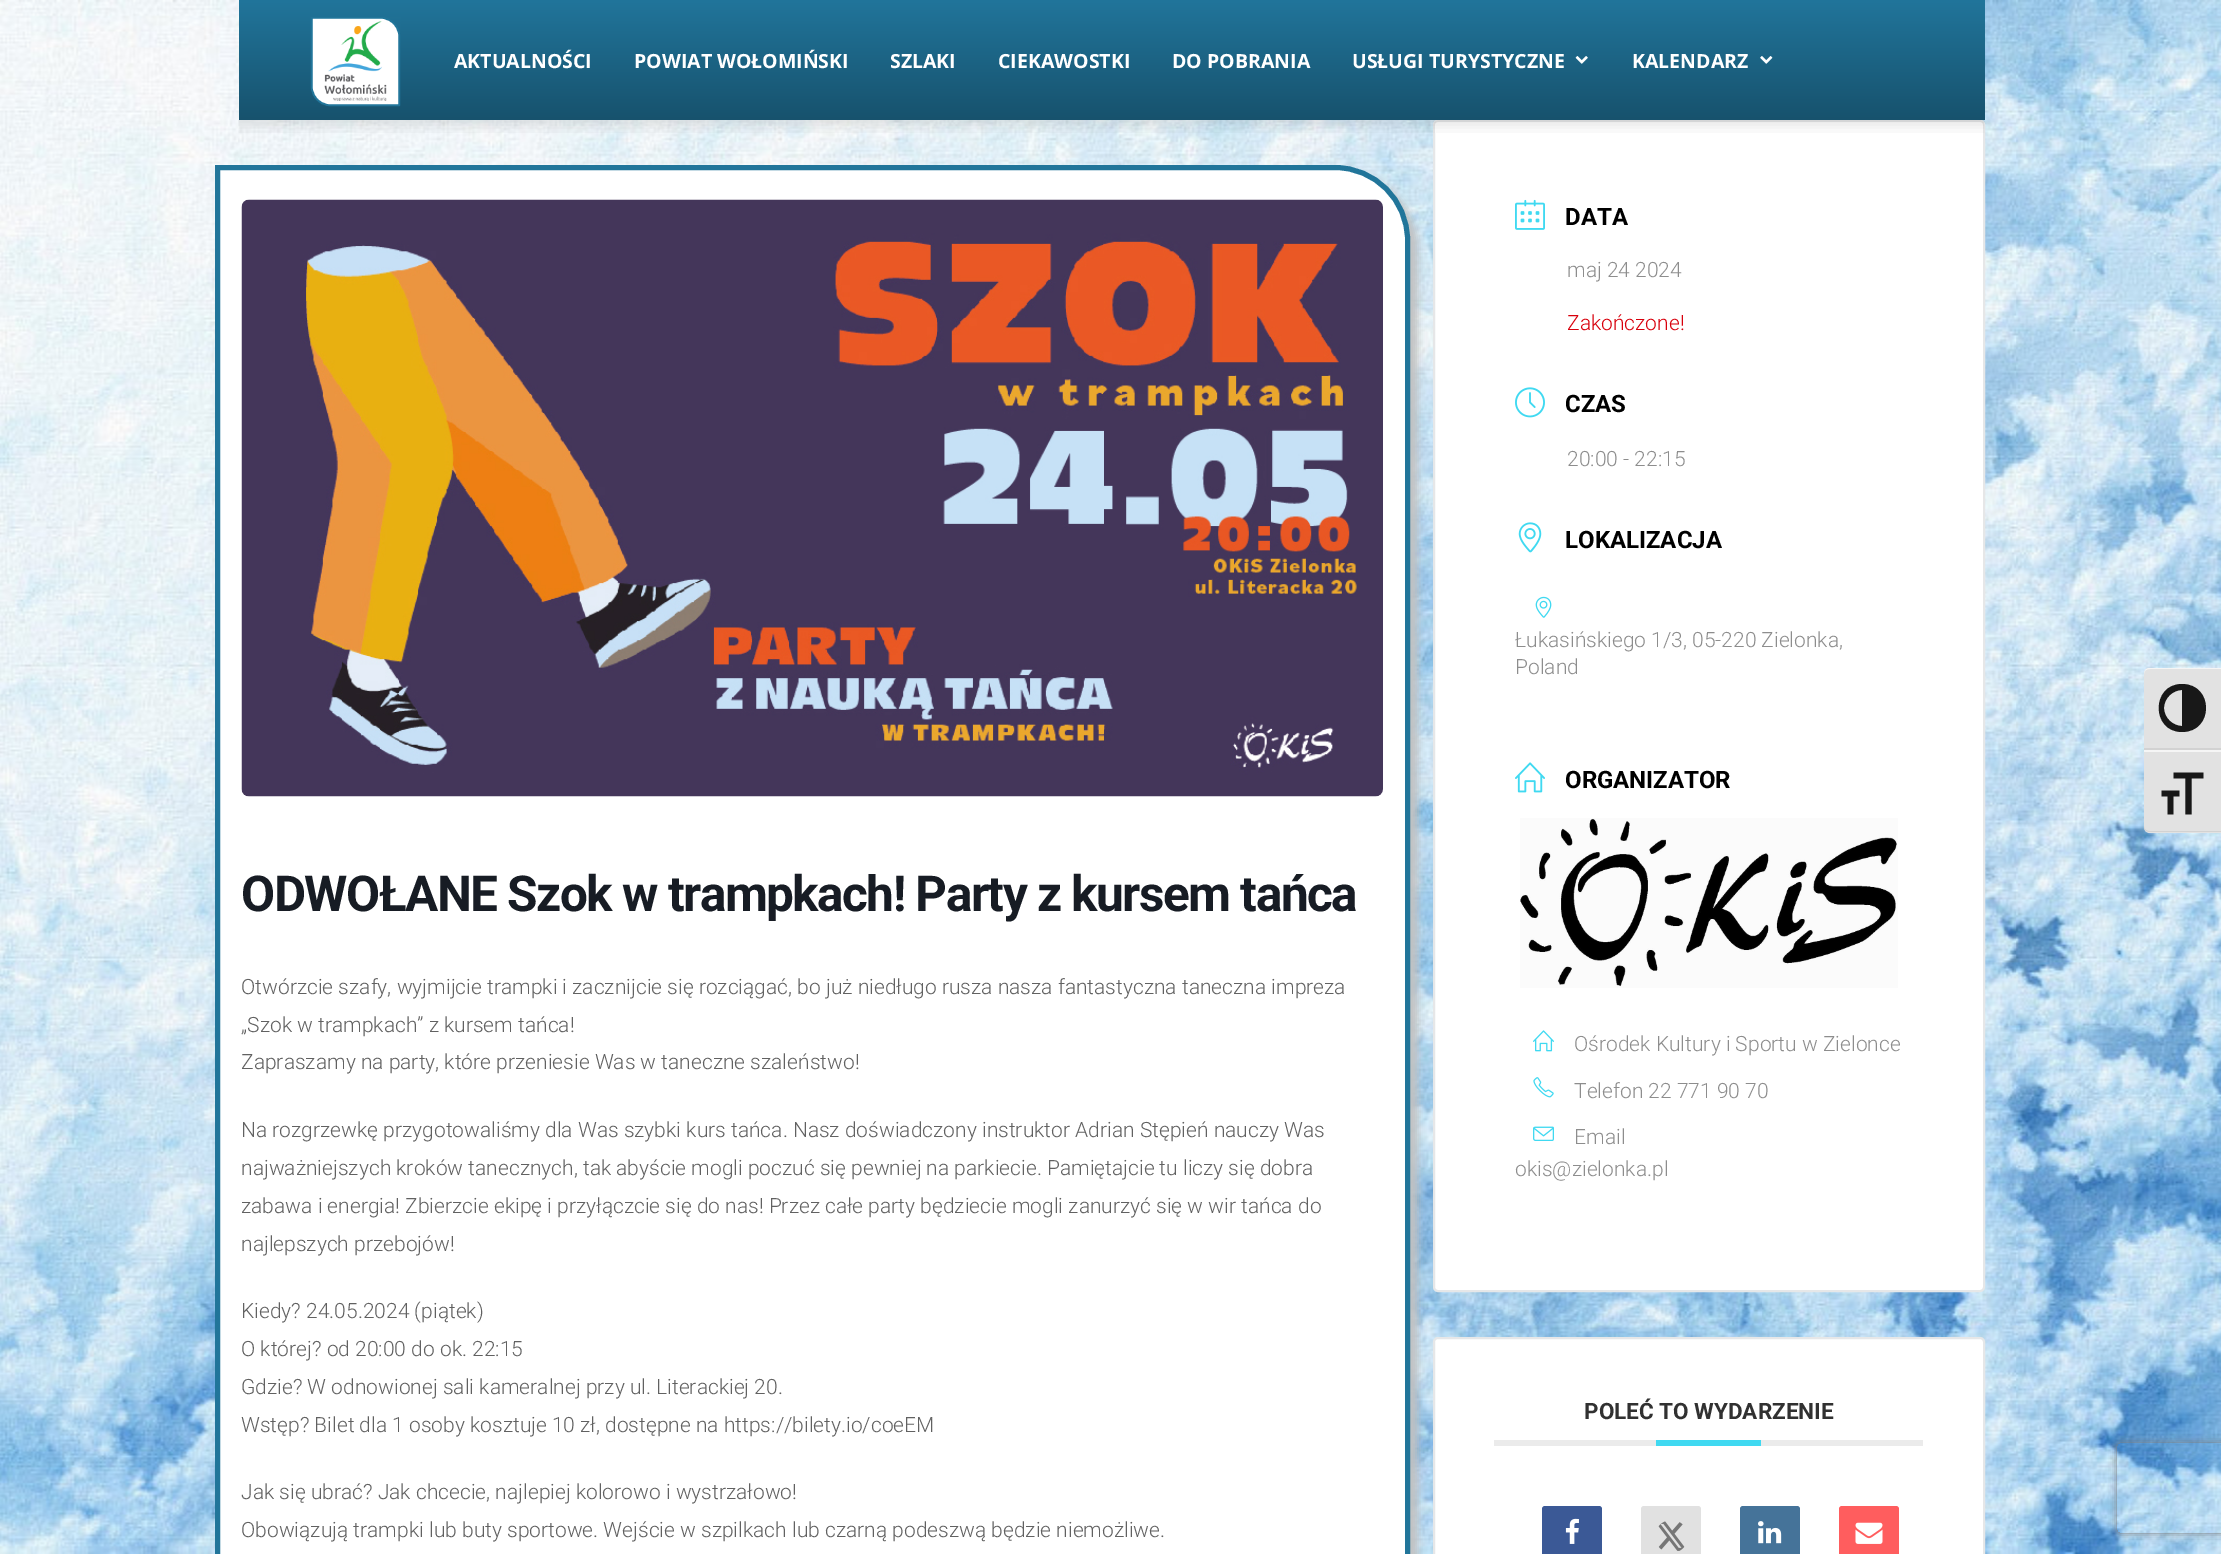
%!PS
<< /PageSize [2221 1554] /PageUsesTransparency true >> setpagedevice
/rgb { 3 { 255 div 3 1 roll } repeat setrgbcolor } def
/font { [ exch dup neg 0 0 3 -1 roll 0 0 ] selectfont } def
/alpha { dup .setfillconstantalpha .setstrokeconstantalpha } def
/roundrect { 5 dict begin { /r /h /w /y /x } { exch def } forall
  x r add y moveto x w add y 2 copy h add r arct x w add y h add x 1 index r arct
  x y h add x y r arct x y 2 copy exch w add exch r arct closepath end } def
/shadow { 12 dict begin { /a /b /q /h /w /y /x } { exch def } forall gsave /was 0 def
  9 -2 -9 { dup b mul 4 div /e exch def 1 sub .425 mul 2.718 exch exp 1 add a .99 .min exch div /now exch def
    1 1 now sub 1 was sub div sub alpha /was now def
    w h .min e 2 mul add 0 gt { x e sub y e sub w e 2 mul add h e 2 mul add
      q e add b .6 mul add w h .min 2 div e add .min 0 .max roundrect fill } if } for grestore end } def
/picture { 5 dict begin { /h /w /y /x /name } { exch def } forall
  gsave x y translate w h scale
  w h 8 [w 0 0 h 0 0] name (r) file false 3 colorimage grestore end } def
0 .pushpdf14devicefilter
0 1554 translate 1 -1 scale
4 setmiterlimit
255 255 255 rgb
0 0 2221 1554 rectfill
(img/1.rgb) 0 0 2221 1554 picture
gsave 239 0 moveto 1985 0 lineto 1985 120 lineto 239 120 lineto closepath clip newpath
<< /ShadingType 2 /ColorSpace /DeviceRGB /Coords [1112 0 1112 120] /Extend [true true] /Function << /FunctionType 2 /Domain [0 1] /C0 [0.129 0.459 0.608] /C1 [0.09 0.322 0.427] /N 1 >> >> shfill grestore
(img/2.rgb) 310 17 91 90 picture
(img/3.rgb) 1575 56 13 8 picture
(img/4.rgb) 1760 56 13 8 picture
1434 121 550 1170 4 roundrect gsave fill grestore
230 231 232 rgb
2 setlinewidth
stroke
(img/5.rgb) 238 120 1747 13 picture
193 193 193 rgb
222 173 1196 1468 75 4 1 shadow
255 255 255 rgb
217.5 167.5 moveto 1335 167.5 lineto 1375 167.5 1407.5 200 1407.5 240 curveto 1407.5 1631.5 lineto 290 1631.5 lineto 250 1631.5 217.5 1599 217.5 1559 curveto closepath gsave fill grestore
33 117 154 rgb
5 setlinewidth
stroke
(img/6.rgb) 241 199 1142 598 picture
(img/7.rgb) 1515 199 30 31 picture
(img/8.rgb) 1515 387 30 31 picture
(img/9.rgb) 1518 522 24 31 picture
(img/10.rgb) 1535 596 17 22 picture
(img/11.rgb) 1515 762 30 31 picture
(img/12.rgb) 1520 818 378 170 picture
(img/13.rgb) 1533 1030 21 22 picture
(img/14.rgb) 1533 1077 21 21 picture
(img/15.rgb) 1533 1126 21 15 picture
255 255 255 rgb
1434 1338 550 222 4 roundrect gsave fill grestore
230 231 232 rgb
2 setlinewidth
stroke
235 235 235 rgb
1494 1440 429 6 rectfill
64 217 241 rgb
1656 1440 105 6 rectfill
59 89 150 rgb
1542 1506 60 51 3 roundrect fill
(img/16.rgb) 1565 1518 14 26 picture
225 225 225 rgb
1641 1506 60 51 3 roundrect fill
(img/17.rgb) 1658 1521 27 30 picture
69 115 153 rgb
1740 1506 60 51 3 roundrect fill
(img/18.rgb) 1758 1521 24 23 picture
255 93 94 rgb
1839 1506 60 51 3 roundrect fill
(img/19.rgb) 1855 1522 28 22 picture
226 226 226 rgb
2150 668 moveto 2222 668 lineto 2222 750 lineto 2144 750 lineto 2144 674 lineto 2144 670.5 2146.5 668 2150 668 curveto closepath fill
245 245 245 rgb
2150 668 moveto 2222 668 lineto 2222 669 lineto 2150 669 lineto 2146 669 2144 671 2144 674 curveto 2144 670 2146 668 2150 668 curveto closepath fill
210 210 210 rgb
2144 748 77 2 rectfill
24 24 24 rgb
2182 684 moveto 2151 684 2151 732 2182 732 curveto 2214 732 2214 684 2182 684 curveto closepath 2164 708 moveto 2164 698 2173 690 2182 690 curveto 2182 726 lineto 2173 726 2164 718 2164 708 curveto closepath fill
226 226 226 rgb
2144 750 moveto 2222 750 lineto 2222 833 lineto 2150 833 lineto 2146.5 833 2144 830.5 2144 827 curveto closepath fill
245 245 245 rgb
2144 750 77 2 rectfill
210 210 210 rgb
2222 831 moveto 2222 832 lineto 2150 832 lineto 2146 832 2144 830 2144 826 curveto 2144 829 2146 831 2150 831 curveto closepath fill
(img/20.rgb) 2161 772 43 43 picture
gsave
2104 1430 moveto 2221 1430 lineto 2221 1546 lineto 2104 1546 lineto closepath 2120 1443 moveto 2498 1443 lineto 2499.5 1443 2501 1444.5 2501 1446 curveto 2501 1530 lineto 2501 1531.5 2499.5 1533 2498 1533 curveto 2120 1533 lineto 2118.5 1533 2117 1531.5 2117 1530 curveto 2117 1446 lineto 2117 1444.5 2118.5 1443 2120 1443 curveto closepath eoclip newpath
128 128 128 rgb
2117 1443 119 90 3 4 1 shadow
grestore
/OpenSans-Bold 19.5 font
255 255 255 rgb
[
  [(AKTUALNOŚCI) 454 68]
  [(POWIAT WOŁOMIŃSKI) 634 68]
  [(SZLAKI) 890 68]
  [(CIEKAWOSTKI) 998 68]
  [(DO POBRANIA) 1172 68]
  [(USŁUGI TURYSTYCZNE) 1352 68]
  [(KALENDARZ) 1632 68]
] { aload pop moveto show } forall
/Roboto-Bold 49.5 font
23 28 36 rgb
241 911 moveto -1.5 0 (ODWOŁANE Szok w trampkach! Party z kursem tańca) ashow
/Roboto-Light 21 font
97 97 97 rgb
[
  [(Otwórzcie szafy, wyjmijcie trampki i zacznijcie się rozciągać, bo już niedługo rusza nasza fantastyczna taneczna impreza) 241 994]
  [(„Szok w trampkach” z kursem tańca!) 241 1032]
  [(Zapraszamy na party, które przeniesie Was w taneczne szaleństwo!) 241 1069]
  [(Na rozgrzewkę przygotowaliśmy dla Was szybki kurs tańca. Nasz doświadczony instruktor Adrian Stępień nauczy Was) 241 1137]
  [(najważniejszych kroków tanecznych, tak abyście mogli poczuć się pewniej na parkiecie. Pamiętajcie tu liczy się dobra) 241 1175]
  [(zabawa i energia! Zbierzcie ekipę i przyłączcie się do nas! Przez całe party będziecie mogli zanurzyć się w wir tańca do) 241 1213]
  [(najlepszych przebojów!) 241 1251]
  [(Kiedy? 24.05.2024 \(piątek\)) 241 1318]
  [(O której? od 20:00 do ok. 22:15) 241 1356]
  [(Gdzie? W odnowionej sali kameralnej przy ul. Literackiej 20.) 241 1394]
  [(Wstęp? Bilet dla 1 osoby kosztuje 10 zł, dostępne na https://bilety.io/coeEM) 241 1432]
  [(Jak się ubrać? Jak chcecie, najlepiej kolorowo i wystrzałowo!) 241 1499]
  [(Obowiązują trampki lub buty sportowe. Wejście w szpilkach lub czarną podeszwą będzie niemożliwe.) 241 1537]
] { aload pop moveto show } forall
/Roboto-Bold 24 font
0 0 0 rgb
1565 225 moveto (DATA) show
/Roboto-Light 21 font
141 141 141 rgb
1567 277 moveto (maj 24 2024) show
216 0 12 rgb
1567 330 moveto (Zakończone!) show
/Roboto-Bold 24 font
0 0 0 rgb
1565 412 moveto (CZAS) show
/Roboto-Light 21 font
141 141 141 rgb
1567 466 moveto (20:00 - 22:15) show
/Roboto-Bold 24 font
0 0 0 rgb
1565 548 moveto (LOKALIZACJA) show
/Roboto-Light 21 font
141 141 141 rgb
1515 647 moveto (Łukasińskiego 1/3, 05-220 Zielonka,) show
1515 674 moveto (Poland) show
/Roboto-Bold 24 font
0 0 0 rgb
1565 788 moveto (ORGANIZATOR) show
/Roboto-Light 21 font
141 141 141 rgb
[
  [(Ośrodek Kultury i Sportu w Zielonce) 1574 1051]
  [(Telefon 22 771 90 70) 1574 1098]
  [(Email) 1574 1144]
  [(okis@zielonka.pl) 1515 1176]
] { aload pop moveto show } forall
/Roboto-Bold 22.5 font
49 49 49 rgb
1584 1419 moveto (POLEĆ TO WYDARZENIE) show
.poppdf14devicefilter showpage
